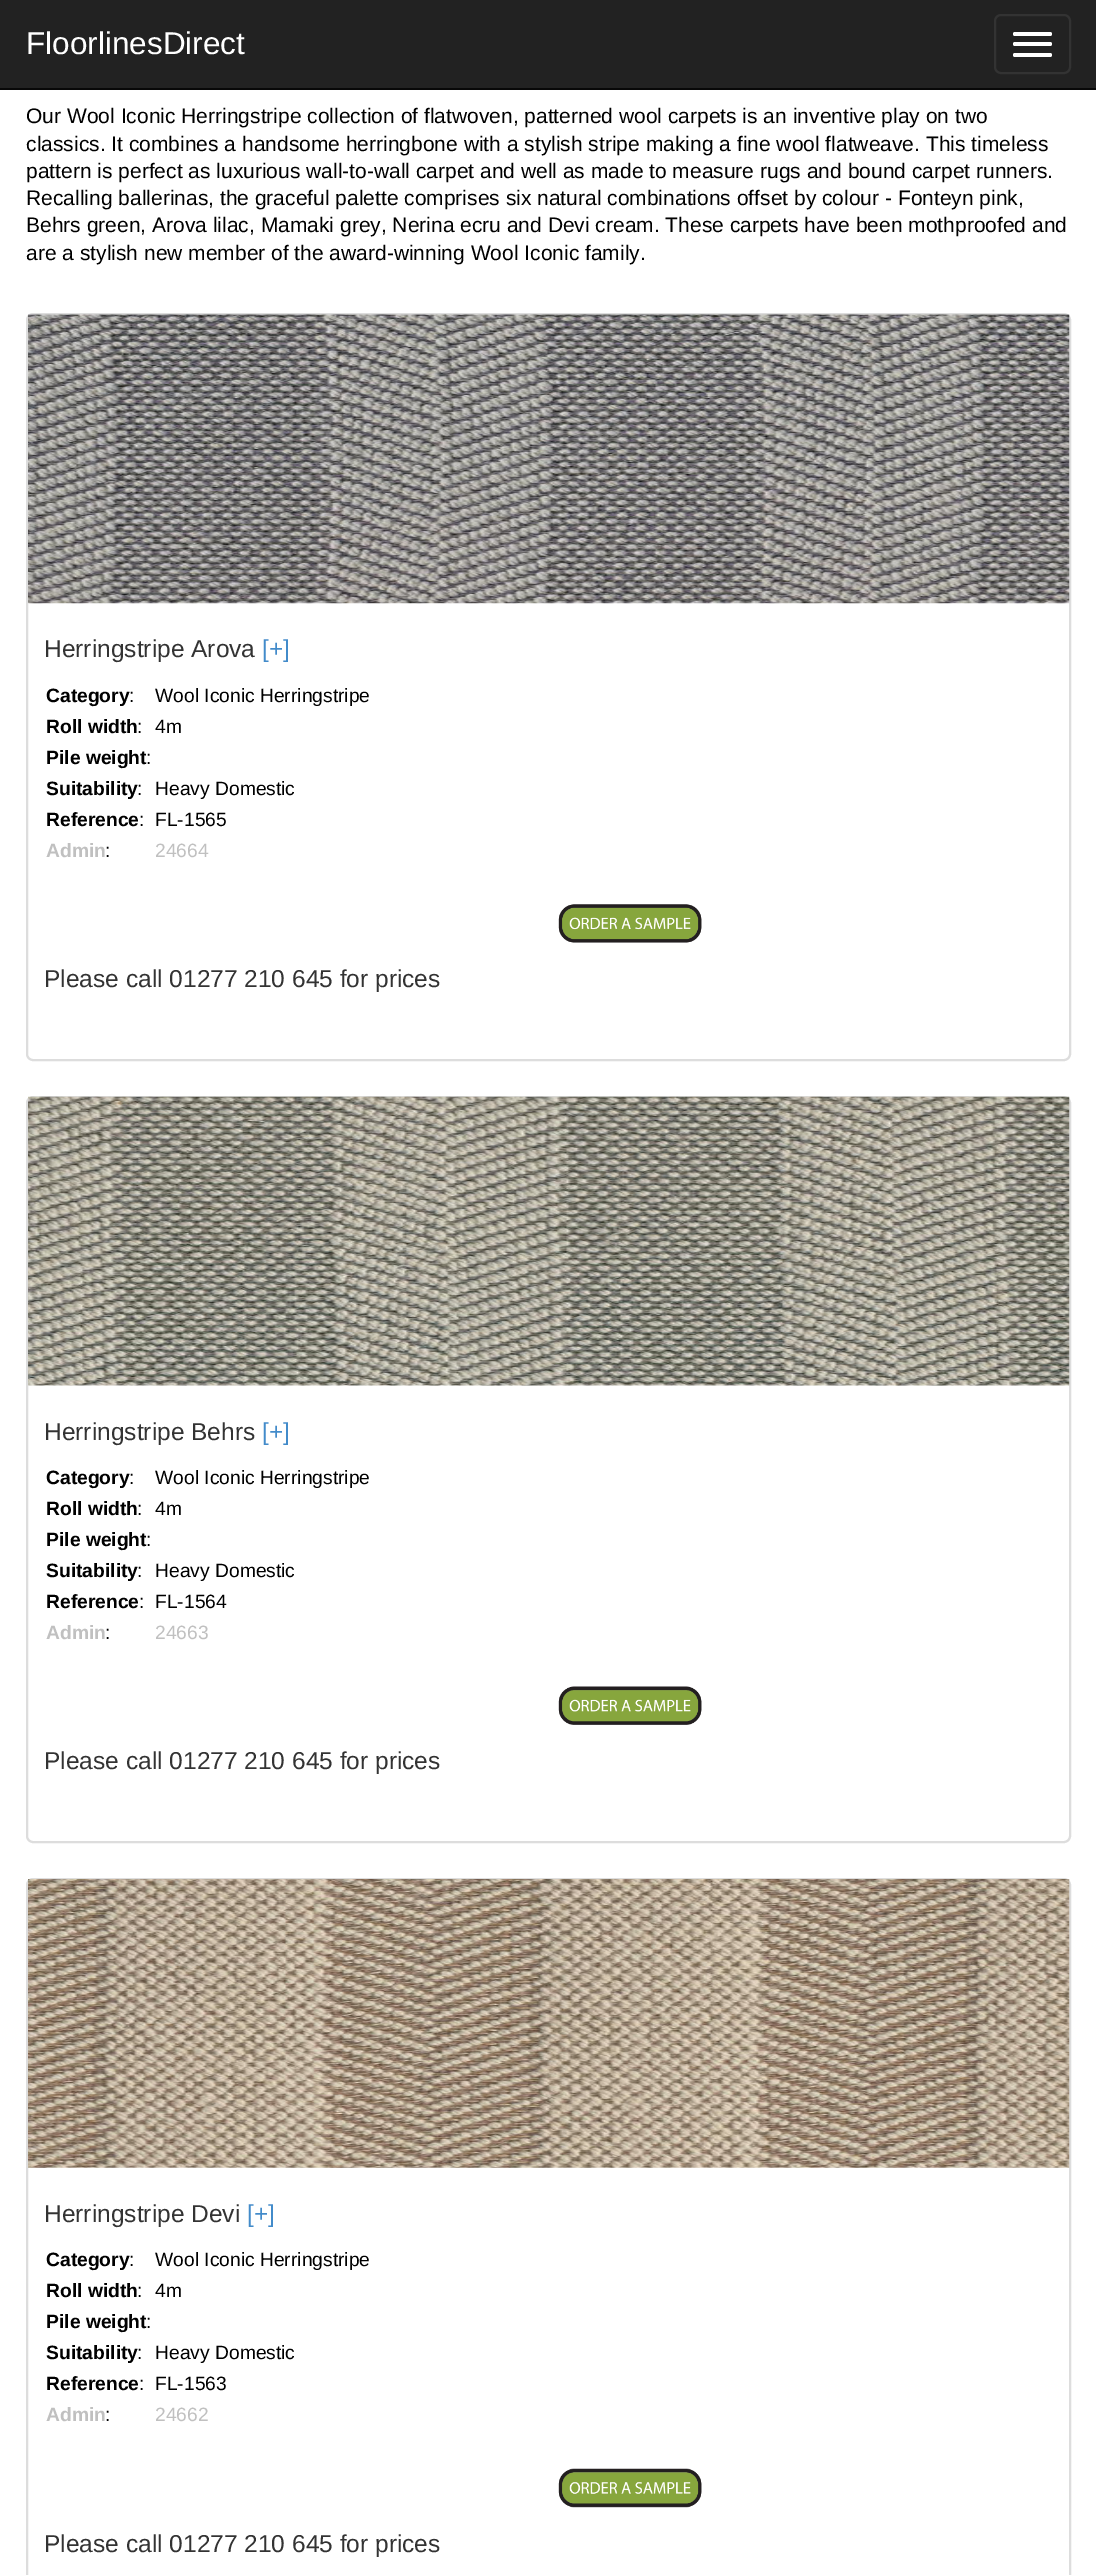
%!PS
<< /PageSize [1096 2575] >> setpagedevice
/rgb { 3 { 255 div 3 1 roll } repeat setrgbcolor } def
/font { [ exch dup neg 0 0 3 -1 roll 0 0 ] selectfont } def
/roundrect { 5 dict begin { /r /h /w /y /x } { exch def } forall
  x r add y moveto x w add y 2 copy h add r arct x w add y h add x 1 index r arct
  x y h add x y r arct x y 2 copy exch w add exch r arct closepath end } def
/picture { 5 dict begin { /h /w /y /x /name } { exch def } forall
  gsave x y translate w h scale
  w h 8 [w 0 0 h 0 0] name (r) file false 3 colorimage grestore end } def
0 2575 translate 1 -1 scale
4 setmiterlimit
255 255 255 rgb
0 0 1096 2575 rectfill
34 34 34 rgb
0 0 1096 88 rectfill
8 8 8 rgb
0 88 1096 2 rectfill
51 51 51 rgb
2 setlinewidth
995 15 75 58 6 roundrect stroke
255 255 255 rgb
1013 32 39 4 2 roundrect fill
1013 42 39 4 2 roundrect fill
1013 53 39 4 2 roundrect fill
221 221 221 rgb
27 314 1043 746 6 roundrect stroke
(img/1.rgb) 28 314 1042 290 picture
(img/2.rgb) 558 904 144 39 picture
27 1097 1043 745 6 roundrect stroke
(img/3.rgb) 28 1096 1042 290 picture
(img/4.rgb) 558 1686 144 39 picture
27 1879 1043 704 6 roundrect stroke
(img/5.rgb) 28 1879 1042 289 picture
(img/6.rgb) 558 2468 144 40 picture
/LiberationSans-Regular 31.5 font
255 255 255 rgb
26 54 moveto (FloorlinesDirect) show
/LiberationSans-Regular 21 font
0 0 0 rgb
[
  [(Our Wool Iconic Herringstripe collection of flatwoven, patterned wool carpets is an inventive play on two) 26 123]
  [(classics. It combines a handsome herringbone with a stylish stripe making a fine wool flatweave. This timeless) 26 151]
  [(pattern is perfect as luxurious wall-to-wall carpet and well as made to measure rugs and bound carpet runners.) 26 178]
  [(Recalling ballerinas, the graceful palette comprises six natural combinations offset by colour - Fonteyn pink,) 26 205]
  [(Behrs green, Arova lilac, Mamaki grey, Nerina ecru and Devi cream. These carpets have been mothproofed and) 26 232]
  [(are a stylish new member of the award-winning Wool Iconic family.) 26 260]
] { aload pop moveto show } forall
/LiberationSans-Regular 24.5 font
51 51 51 rgb
44 657 moveto (Herringstripe Arova) show
66 139 202 rgb
262 657 moveto ([+]) show
/LiberationSans-Bold 19.25 font
0 0 0 rgb
46 702 moveto (Category) show
/LiberationSans-Regular 19.25 font
129 702 moveto (:) show
155 702 moveto (Wool Iconic Herringstripe) show
/LiberationSans-Bold 19.25 font
46 733 moveto (Roll width) show
/LiberationSans-Regular 19.25 font
137 733 moveto (:) show
155 733 moveto (4m) show
/LiberationSans-Bold 19.25 font
46 764 moveto (Pile weight) show
/LiberationSans-Regular 19.25 font
146 764 moveto (:) show
/LiberationSans-Bold 19.25 font
46 795 moveto (Suitability) show
/LiberationSans-Regular 19.25 font
137 795 moveto (:) show
155 795 moveto (Heavy Domestic) show
/LiberationSans-Bold 19.25 font
46 826 moveto (Reference) show
/LiberationSans-Regular 19.25 font
139 826 moveto (:) show
155 826 moveto (FL-1565) show
/LiberationSans-Bold 19.25 font
192 192 192 rgb
46 857 moveto (Admin) show
/LiberationSans-Regular 19.25 font
0 0 0 rgb
105 857 moveto (:) show
192 192 192 rgb
155 857 moveto (24664) show
/LiberationSans-Regular 24.5 font
51 51 51 rgb
44 987 moveto (Please call 01277 210 645 for prices) show
44 1440 moveto (Herringstripe Behrs) show
66 139 202 rgb
262 1440 moveto ([+]) show
/LiberationSans-Bold 19.25 font
0 0 0 rgb
46 1484 moveto (Category) show
/LiberationSans-Regular 19.25 font
129 1484 moveto (:) show
155 1484 moveto (Wool Iconic Herringstripe) show
/LiberationSans-Bold 19.25 font
46 1515 moveto (Roll width) show
/LiberationSans-Regular 19.25 font
137 1515 moveto (:) show
155 1515 moveto (4m) show
/LiberationSans-Bold 19.25 font
46 1546 moveto (Pile weight) show
/LiberationSans-Regular 19.25 font
146 1546 moveto (:) show
/LiberationSans-Bold 19.25 font
46 1577 moveto (Suitability) show
/LiberationSans-Regular 19.25 font
137 1577 moveto (:) show
155 1577 moveto (Heavy Domestic) show
/LiberationSans-Bold 19.25 font
46 1608 moveto (Reference) show
/LiberationSans-Regular 19.25 font
139 1608 moveto (:) show
155 1608 moveto (FL-1564) show
/LiberationSans-Bold 19.25 font
192 192 192 rgb
46 1639 moveto (Admin) show
/LiberationSans-Regular 19.25 font
0 0 0 rgb
105 1639 moveto (:) show
192 192 192 rgb
155 1639 moveto (24663) show
/LiberationSans-Regular 24.5 font
51 51 51 rgb
44 1769 moveto (Please call 01277 210 645 for prices) show
44 2222 moveto (Herringstripe Devi) show
66 139 202 rgb
247 2222 moveto ([+]) show
/LiberationSans-Bold 19.25 font
0 0 0 rgb
46 2266 moveto (Category) show
/LiberationSans-Regular 19.25 font
129 2266 moveto (:) show
155 2266 moveto (Wool Iconic Herringstripe) show
/LiberationSans-Bold 19.25 font
46 2297 moveto (Roll width) show
/LiberationSans-Regular 19.25 font
137 2297 moveto (:) show
155 2297 moveto (4m) show
/LiberationSans-Bold 19.25 font
46 2328 moveto (Pile weight) show
/LiberationSans-Regular 19.25 font
146 2328 moveto (:) show
/LiberationSans-Bold 19.25 font
46 2359 moveto (Suitability) show
/LiberationSans-Regular 19.25 font
137 2359 moveto (:) show
155 2359 moveto (Heavy Domestic) show
/LiberationSans-Bold 19.25 font
46 2390 moveto (Reference) show
/LiberationSans-Regular 19.25 font
139 2390 moveto (:) show
155 2390 moveto (FL-1563) show
/LiberationSans-Bold 19.25 font
192 192 192 rgb
46 2421 moveto (Admin) show
/LiberationSans-Regular 19.25 font
0 0 0 rgb
105 2421 moveto (:) show
192 192 192 rgb
155 2421 moveto (24662) show
/LiberationSans-Regular 24.5 font
51 51 51 rgb
44 2552 moveto (Please call 01277 210 645 for prices) show
showpage
